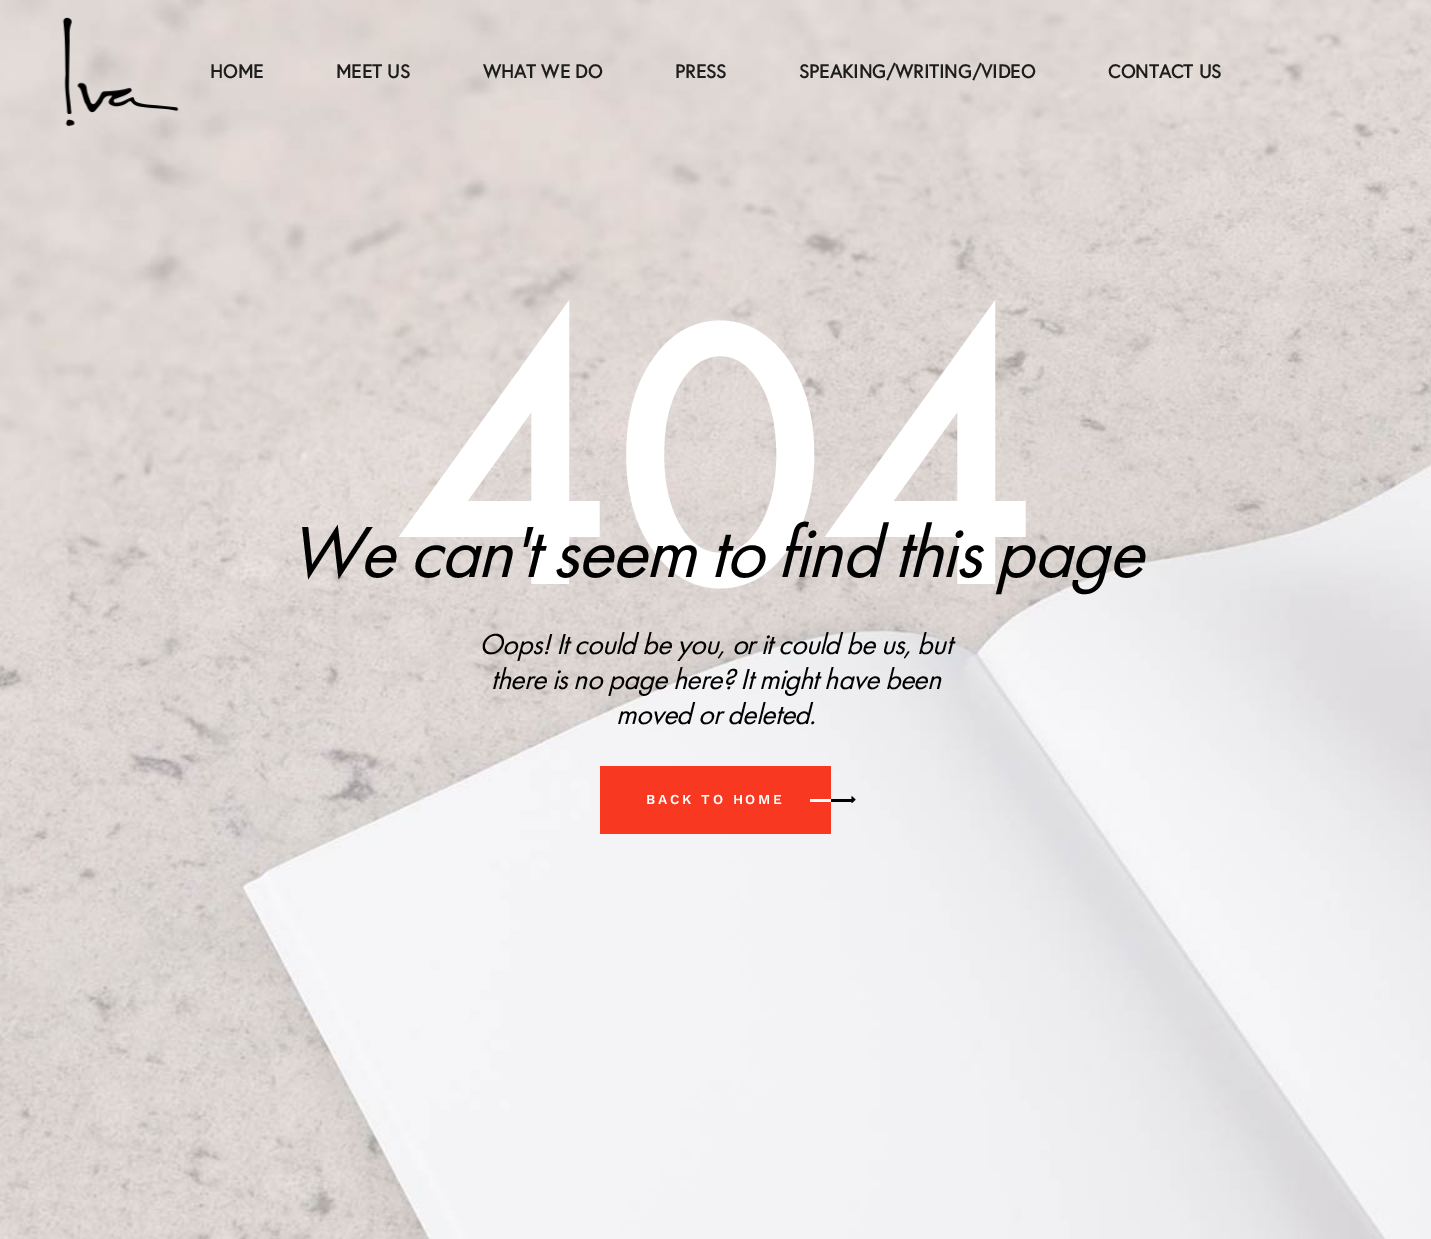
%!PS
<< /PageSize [1431 1239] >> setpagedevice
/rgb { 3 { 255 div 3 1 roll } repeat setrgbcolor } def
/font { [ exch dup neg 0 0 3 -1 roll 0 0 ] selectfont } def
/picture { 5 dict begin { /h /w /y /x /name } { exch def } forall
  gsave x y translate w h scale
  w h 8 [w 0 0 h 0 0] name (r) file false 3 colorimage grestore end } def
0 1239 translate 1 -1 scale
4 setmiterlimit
255 255 255 rgb
0 0 1431 1239 rectfill
(img/2.rgb) 0 0 1431 1239 picture
(img/1.rgb) 62 17 117 110 picture
249 56 34 rgb
600 766 231 68 rectfill
255 255 255 rgb
810 799 21 3 rectfill
(img/3.rgb) 851 796 5 7 picture
0 0 0 rgb
831 799 22 3 rectfill
/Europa-Bold 18.75 font
29 29 29 rgb
210 78 moveto 0.2 0 (HOME) ashow
336 78 moveto 0.2 0 (MEET US) ashow
483 78 moveto 0.2 0 (WHAT WE DO) ashow
675 78 moveto 0.2 0 (PRESS) ashow
799 78 moveto 0.2 0 (SPEAKING/WRITING/VIDEO) ashow
1108 78 moveto 0.2 0 (CONTACT US) ashow
/FuturaPT-Bold 375 font
255 255 255 rgb
396 584 moveto (404) show
/FuturaPT-Italic 75 font
0 0 0 rgb
289 577 moveto -1.9 0 (We can't seem to find this page) ashow
/FuturaPT-Italic 30 font
479 654 moveto -0.75 0 (Oops! It could be you, or it could be us, but) ashow
491 689 moveto -0.75 0 (there is no page here? It might have been) ashow
616 724 moveto -0.75 0 (moved or deleted.) ashow
/WorkSans-SemiBold 13.75 font
255 255 255 rgb
646 804 moveto 2.75 0 (BACK TO HOME) ashow
showpage
